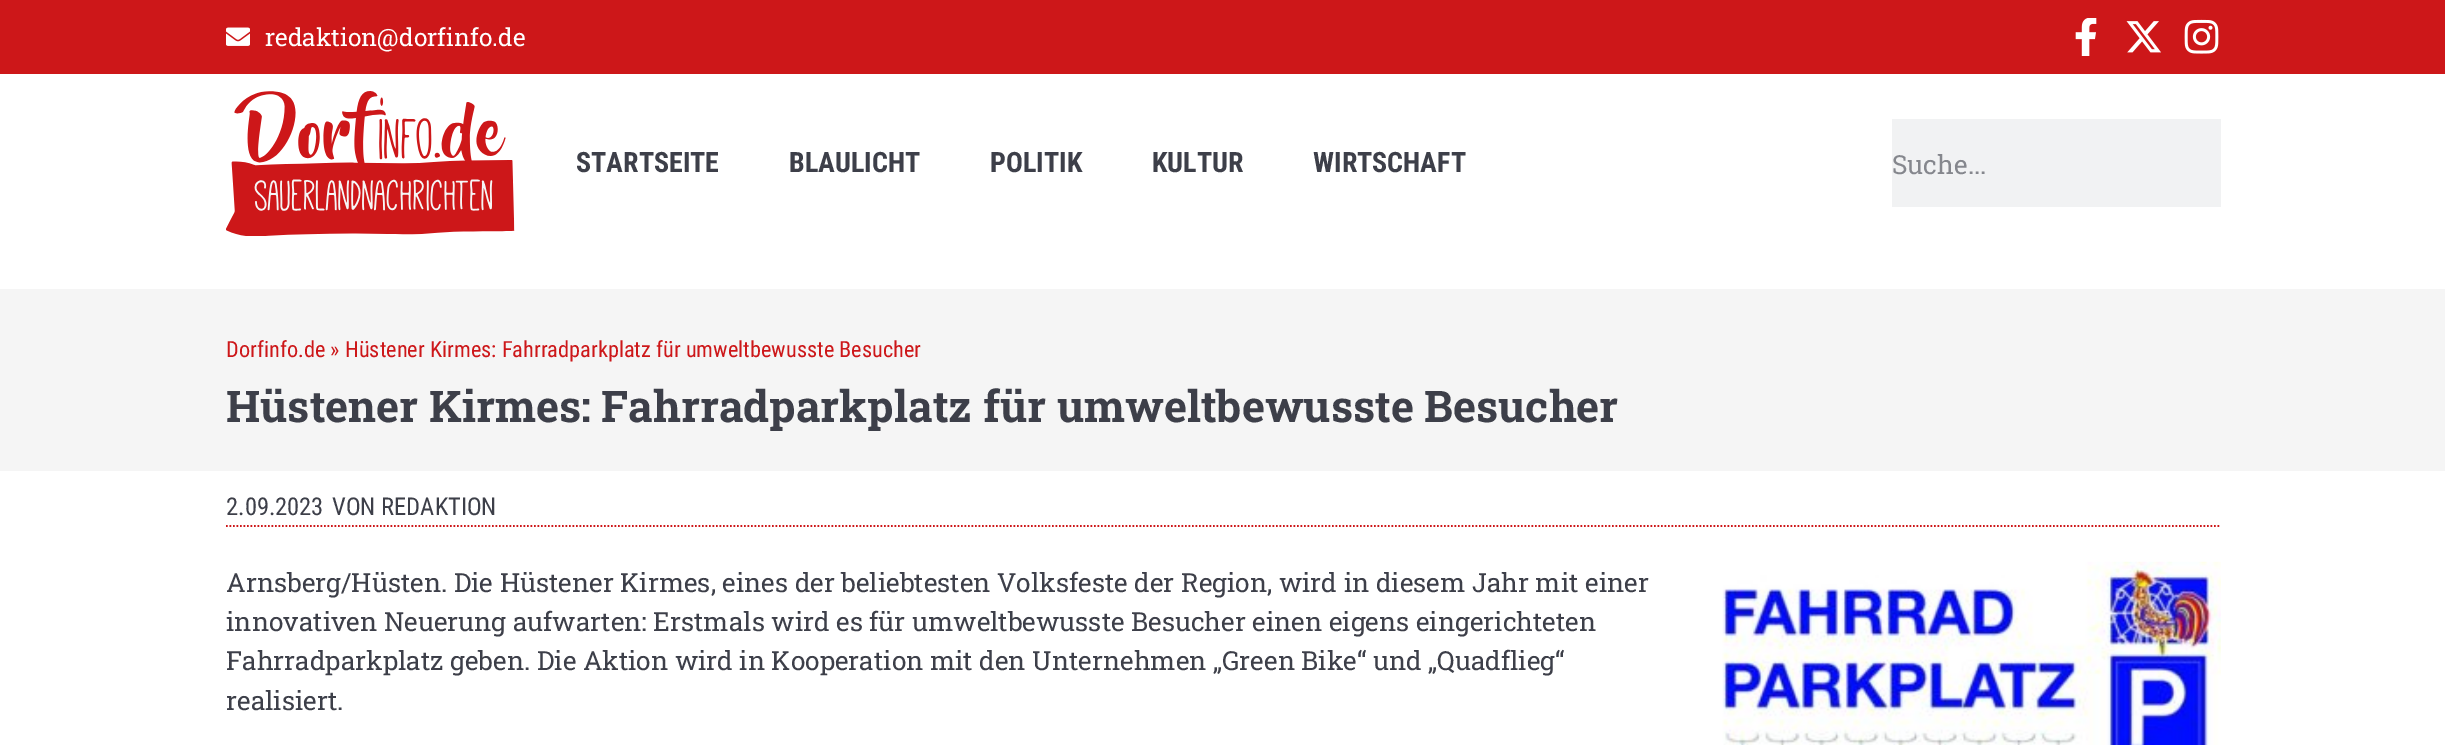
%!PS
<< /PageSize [2445 745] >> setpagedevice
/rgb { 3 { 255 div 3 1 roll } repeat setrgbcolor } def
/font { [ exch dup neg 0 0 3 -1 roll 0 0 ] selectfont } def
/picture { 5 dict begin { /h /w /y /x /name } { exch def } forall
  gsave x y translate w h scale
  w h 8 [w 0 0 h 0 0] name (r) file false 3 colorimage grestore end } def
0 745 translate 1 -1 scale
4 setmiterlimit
255 255 255 rgb
0 0 2445 745 rectfill
205 23 25 rgb
0 0 2445 74 rectfill
(img/1.rgb) 226 27 24 19 picture
(img/2.rgb) 2075 18 22 38 picture
(img/3.rgb) 2126 21 35 32 picture
(img/4.rgb) 2184 19 35 35 picture
(img/5.rgb) 226 91 289 145 picture
241 242 243 rgb
1892 119 329 88 rectfill
245 245 245 rgb
0 289 2445 182 rectfill
205 23 25 rgb
1.8 setlinewidth
[1.75 1.75] 0 setdash
226 526 moveto 2221 526 lineto stroke
(img/6.rgb) 1722 561 499 184 picture
/RobotoSlab-Regular 24.5 font
255 255 255 rgb
265 46 moveto (redaktion@dorfinfo.de) show
/RobotoCondensed-Bold 28 font
61 63 73 rgb
[
  [(STARTSEITE) 576 172]
  [(BLAULICHT) 789 172]
  [(POLITIK) 990 172]
  [(KULTUR) 1152 172]
  [(WIRTSCHAFT) 1313 172]
] { aload pop moveto show } forall
/RobotoSlab-Regular 26.25 font
133 135 141 rgb
1892 174 moveto (Suche...) show
/RobotoCondensed-Regular 22.3 font
205 23 25 rgb
226 357 moveto (Dorfinfo.de » Hüstener Kirmes: Fahrradparkplatz für umweltbewusste Besucher) show
/RobotoSlab-Bold 43.75 font
61 63 73 rgb
226 422 moveto (Hüstener Kirmes: Fahrradparkplatz für umweltbewusste Besucher) show
/RobotoCondensed-Regular 24.5 font
226 515 moveto (2.09.2023) show
332 515 moveto (VON REDAKTION) show
/RobotoSlab-Regular 26.25 font
[
  [(Arnsberg/Hüsten. Die Hüstener Kirmes, eines der beliebtesten Volksfeste der Region, wird in diesem Jahr mit einer) 226 592]
  [(innovativen Neuerung aufwarten: Erstmals wird es für umweltbewusste Besucher einen eigens eingerichteten) 226 631]
  [(Fahrradparkplatz geben. Die Aktion wird in Kooperation mit den Unternehmen „Green Bike“ und „Quadflieg“) 226 670]
  [(realisiert.) 226 710]
] { aload pop moveto show } forall
showpage
